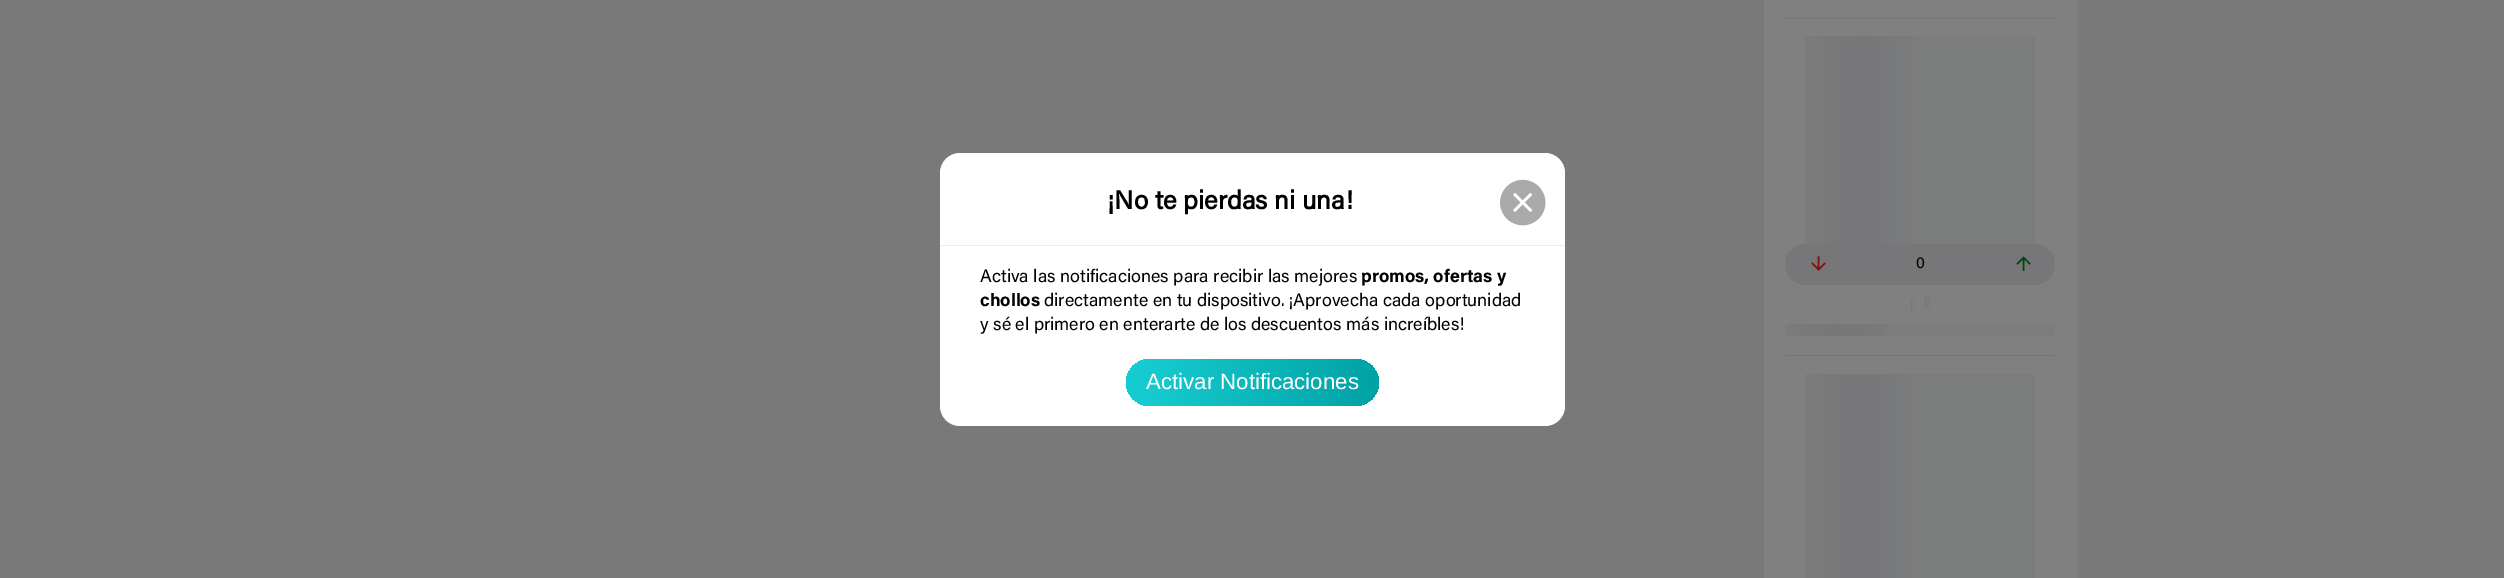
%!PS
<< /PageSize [2504 578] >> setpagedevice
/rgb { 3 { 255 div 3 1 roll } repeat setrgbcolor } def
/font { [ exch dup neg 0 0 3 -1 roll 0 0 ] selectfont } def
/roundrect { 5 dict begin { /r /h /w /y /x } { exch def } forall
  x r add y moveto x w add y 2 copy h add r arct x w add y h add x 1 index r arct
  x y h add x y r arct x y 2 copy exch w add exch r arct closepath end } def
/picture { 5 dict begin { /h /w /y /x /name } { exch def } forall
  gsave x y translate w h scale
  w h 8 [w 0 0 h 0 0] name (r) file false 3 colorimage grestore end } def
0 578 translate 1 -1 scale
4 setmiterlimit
121 121 121 rgb
0 0 2504 578 rectfill
255 255 255 rgb
940 153 625 273 20 roundrect fill
236 236 240 rgb
940 245 625 1 rectfill
(img/1.rgb) 1500 179 46 47 picture
gsave 1126 359 253 47 23.5 roundrect clip newpath
<< /ShadingType 2 /ColorSpace /DeviceRGB /Coords [1379 383 1126 383] /Extend [true true] /Function << /FunctionType 3 /Domain [0 1] /Functions [<< /FunctionType 2 /Domain [0 1] /C0 [0.004 0.635 0.643] /C1 [0.086 0.796 0.812] /N 1 >> << /FunctionType 2 /Domain [0 1] /C0 [0.086 0.796 0.812] /C1 [0.086 0.796 0.812] /N 1 >>] /Bounds [0.93] /Encode [0 1 0 1] >> >> shfill grestore
128 128 128 rgb
1764 0 314 578 rectfill
(img/2.rgb) 2047 0 3 1 picture
118 118 120 rgb
1785 18 270 1 rectfill
gsave 1805 36 moveto 2035 36 lineto 2035 244 lineto 1805 244 lineto closepath clip newpath
<< /ShadingType 2 /ColorSpace /DeviceRGB /Coords [1805 174 2355 174] /Extend [true true] /Function << /FunctionType 3 /Domain [0 1] /Functions [<< /FunctionType 2 /Domain [0 1] /C0 [0.482 0.486 0.486] /C1 [0.467 0.467 0.475] /N 1 >> << /FunctionType 2 /Domain [0 1] /C0 [0.467 0.467 0.475] /C1 [0.482 0.486 0.486] /N 1 >> << /FunctionType 2 /Domain [0 1] /C0 [0.482 0.486 0.486] /C1 [0.482 0.486 0.486] /N 1 >>] /Bounds [0.1 0.2] /Encode [0 1 0 1 0 1] >> >> shfill grestore
119 119 121 rgb
1785 244 270 41 20.5 roundrect fill
(img/3.rgb) 1811 256 15 15 picture
(img/4.rgb) 2016 256 15 15 picture
gsave
1911 299 4 12 2 roundrect clip newpath
1911 299 1 12 rectfill
grestore
123 124 124 rgb
1913 299 moveto 1914 299 1915 300 1915 301 curveto 1915 309 lineto 1915 310 1914 311 1913 311 curveto closepath fill
gsave
1925 295 5 13 2.5 roundrect clip newpath
119 119 121 rgb
1925 295 1 13 rectfill
123 124 124 rgb
1926 295 moveto 1927.5 295 lineto 1929 295 1930 296 1930 297.5 curveto 1930 305.5 lineto 1930 307 1929 308 1927.5 308 curveto 1926 308 lineto closepath fill
grestore
gsave 1785 324 270 12 6 roundrect clip newpath
<< /ShadingType 2 /ColorSpace /DeviceRGB /Coords [1785 330 2325 330] /Extend [true true] /Function << /FunctionType 3 /Domain [0 1] /Functions [<< /FunctionType 2 /Domain [0 1] /C0 [0.482 0.486 0.486] /C1 [0.467 0.467 0.475] /N 1 >> << /FunctionType 2 /Domain [0 1] /C0 [0.467 0.467 0.475] /C1 [0.482 0.486 0.486] /N 1 >> << /FunctionType 2 /Domain [0 1] /C0 [0.482 0.486 0.486] /C1 [0.482 0.486 0.486] /N 1 >>] /Bounds [0.1 0.2] /Encode [0 1 0 1 0 1] >> >> shfill grestore
118 118 120 rgb
1785 355 270 1 rectfill
gsave 1805 374 moveto 2035 374 lineto 2035 578 lineto 1805 578 lineto closepath clip newpath
<< /ShadingType 2 /ColorSpace /DeviceRGB /Coords [1805 511 2355 511] /Extend [true true] /Function << /FunctionType 3 /Domain [0 1] /Functions [<< /FunctionType 2 /Domain [0 1] /C0 [0.482 0.486 0.486] /C1 [0.467 0.467 0.475] /N 1 >> << /FunctionType 2 /Domain [0 1] /C0 [0.467 0.467 0.475] /C1 [0.482 0.486 0.486] /N 1 >> << /FunctionType 2 /Domain [0 1] /C0 [0.482 0.486 0.486] /C1 [0.482 0.486 0.486] /N 1 >>] /Bounds [0.1 0.2] /Encode [0 1 0 1 0 1] >> >> shfill grestore
/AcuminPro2-Bold 26 font
0 0 0 rgb
1108 209 moveto (¡No te pierdas ni una!) show
/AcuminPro-Regular 17.9 font
980 282 moveto (Activa las notificaciones para recibir las mejores) show
/AcuminPro-Bold 17.9 font
1361 282 moveto (promos, ofertas y) show
980 306 moveto (chollos) show
/AcuminPro-Regular 17.9 font
1044 306 moveto (directamente en tu dispositivo. ¡Aprovecha cada oportunidad) show
980 330 moveto (y sé el primero en enterarte de los descuentos más increíbles!) show
/LiberationSans-Regular 22.25 font
255 255 255 rgb
1146 389 moveto (Activar Notificaciones) show
/AcuminPro-Regular 16 font
0 0 0 rgb
1916 268 moveto (0) show
showpage
